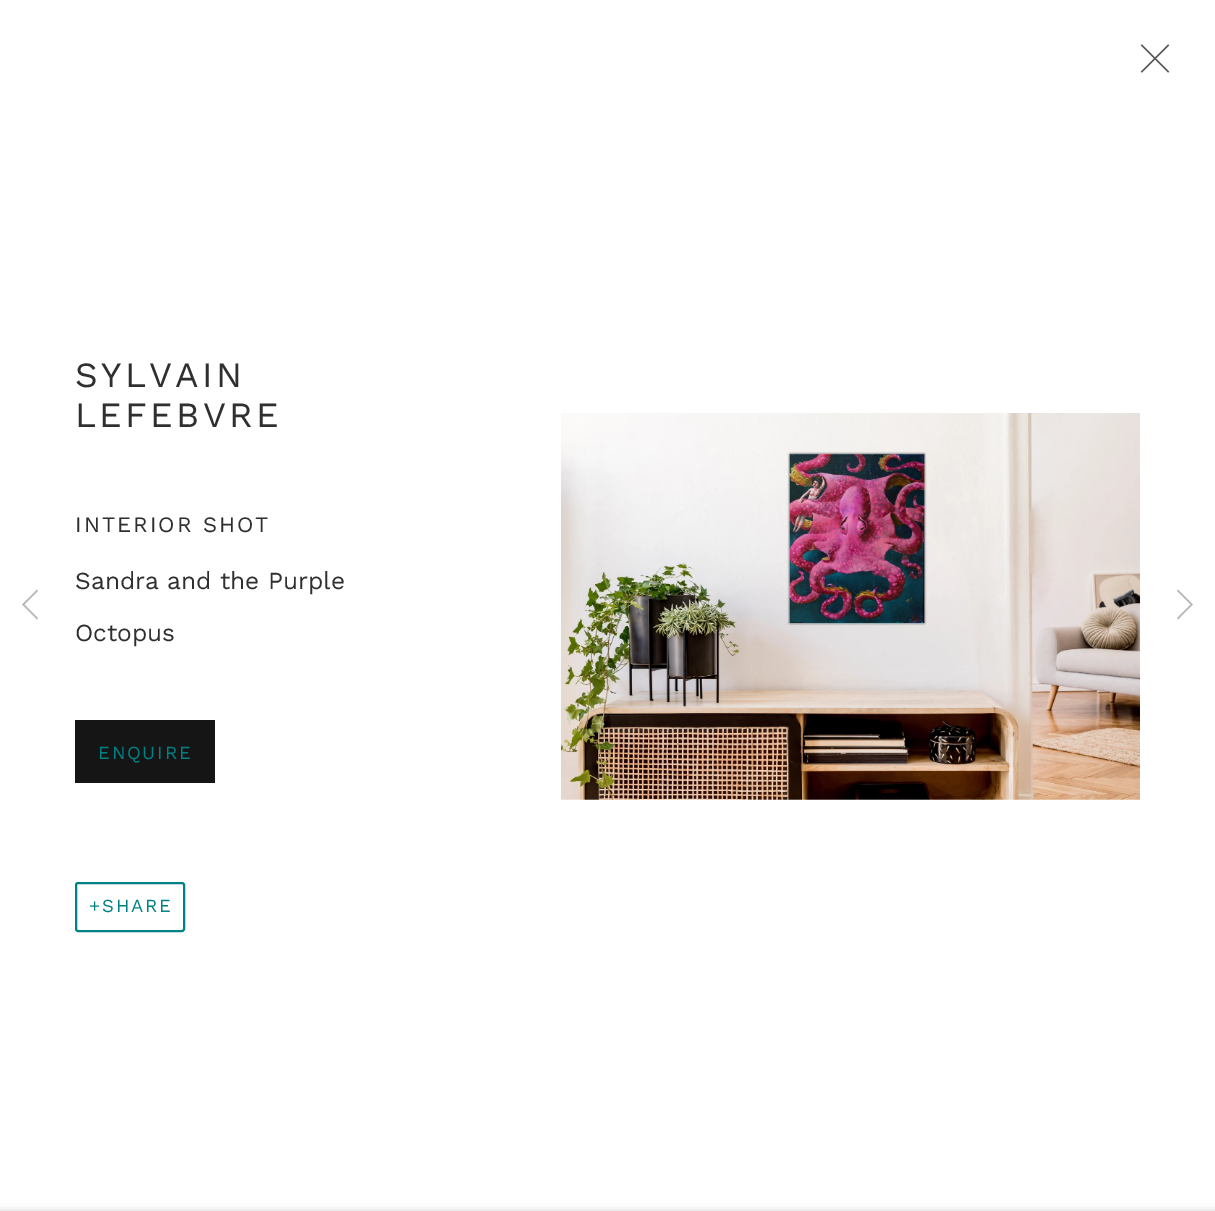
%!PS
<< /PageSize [1215 1211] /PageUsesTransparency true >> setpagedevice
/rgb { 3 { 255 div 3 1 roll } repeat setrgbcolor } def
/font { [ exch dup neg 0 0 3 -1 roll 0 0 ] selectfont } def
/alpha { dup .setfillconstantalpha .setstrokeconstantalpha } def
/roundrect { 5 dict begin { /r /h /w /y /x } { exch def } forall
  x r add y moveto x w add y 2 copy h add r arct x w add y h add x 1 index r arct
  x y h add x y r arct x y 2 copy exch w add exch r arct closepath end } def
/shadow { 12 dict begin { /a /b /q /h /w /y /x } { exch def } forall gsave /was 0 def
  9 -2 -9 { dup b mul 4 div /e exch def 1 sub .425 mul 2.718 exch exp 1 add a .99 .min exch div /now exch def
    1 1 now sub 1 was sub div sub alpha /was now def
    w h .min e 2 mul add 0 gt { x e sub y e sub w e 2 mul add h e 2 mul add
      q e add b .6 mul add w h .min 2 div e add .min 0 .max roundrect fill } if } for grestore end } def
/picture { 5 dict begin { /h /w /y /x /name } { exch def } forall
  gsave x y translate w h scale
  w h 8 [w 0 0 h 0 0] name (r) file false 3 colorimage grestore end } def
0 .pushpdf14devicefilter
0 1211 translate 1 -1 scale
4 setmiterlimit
255 255 255 rgb
0 0 1215 1211 rectfill
(img/1.rgb) 1140 44 30 29 picture
21 21 21 rgb
75 720 140 63 rectfill
0 129 131 rgb
2 setlinewidth
76 883 108 48 2 roundrect stroke
(img/2.rgb) 561 413 579 387 picture
185 185 185 rgb
23 605.5 moveto 37 619.5 lineto 38 618 lineto 24.5 604.5 lineto 38 591 lineto 37 589.5 lineto 22 604.5 lineto closepath fill
1193 604.5 moveto 1178 589.5 lineto 1177 591 lineto 1190.5 604.5 lineto 1177 618 lineto 1178 619.5 lineto closepath fill
0 0 0 rgb
0 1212 1215 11 0 4 0.23 shadow
/WorkSans-Regular 35.5 font
47 47 47 rgb
75 387 moveto 3.25 0 (SYLVAIN) ashow
75 427 moveto 3.25 0 (LEFEBVRE) ashow
/WorkSans-Regular 22 font
75 532 moveto 2 0 (INTERIOR SHOT) ashow
/WorkSans-Regular 24.5 font
75 589 moveto (Sandra and the Purple) show
75 641 moveto (Octopus) show
/WorkSans-Regular 18.5 font
0 129 131 rgb
98 759 moveto 1.75 0 (ENQUIRE) ashow
89 912 moveto 1.75 0 (+SHARE) ashow
.poppdf14devicefilter showpage
